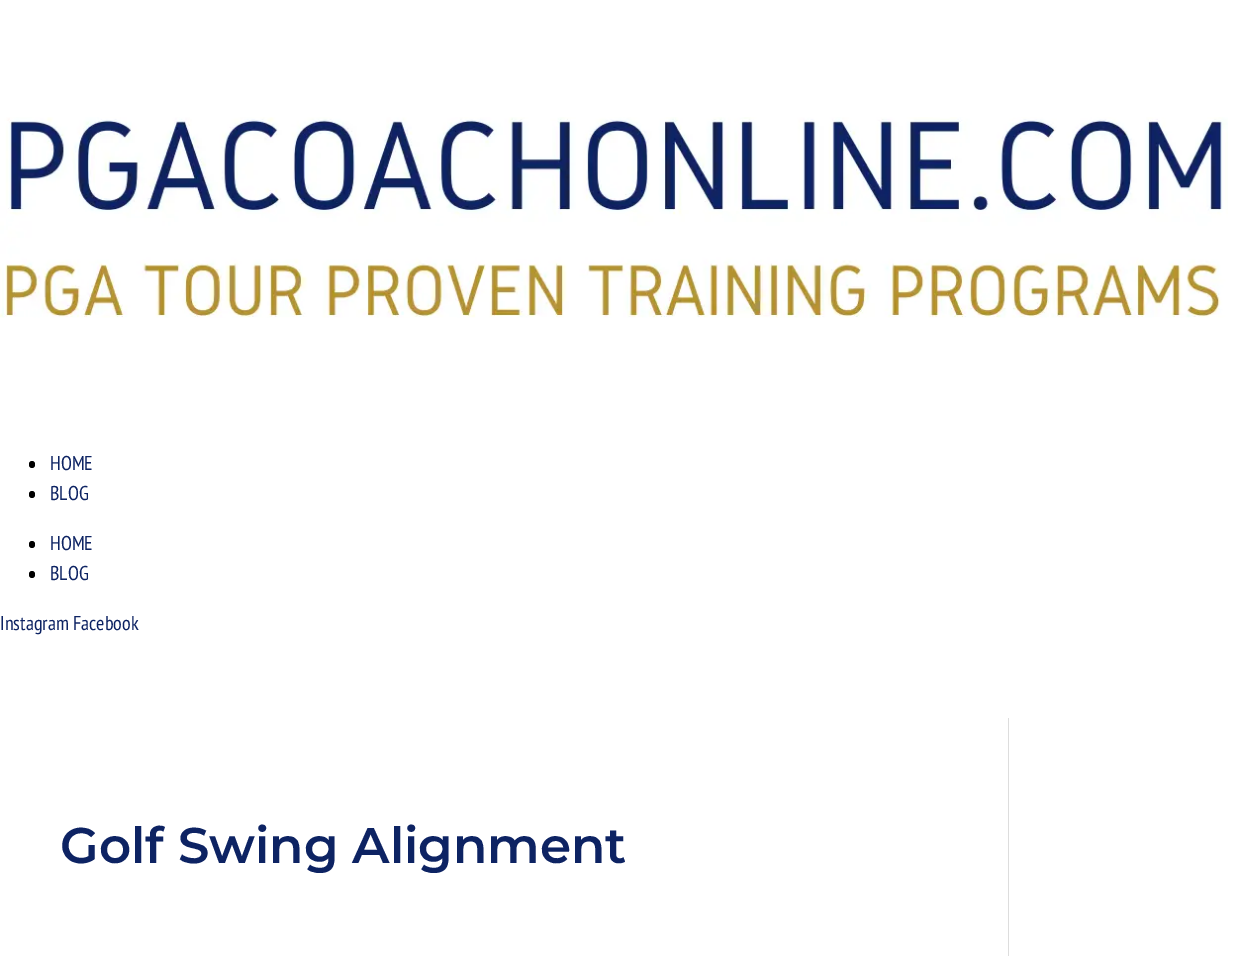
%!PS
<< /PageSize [1258 956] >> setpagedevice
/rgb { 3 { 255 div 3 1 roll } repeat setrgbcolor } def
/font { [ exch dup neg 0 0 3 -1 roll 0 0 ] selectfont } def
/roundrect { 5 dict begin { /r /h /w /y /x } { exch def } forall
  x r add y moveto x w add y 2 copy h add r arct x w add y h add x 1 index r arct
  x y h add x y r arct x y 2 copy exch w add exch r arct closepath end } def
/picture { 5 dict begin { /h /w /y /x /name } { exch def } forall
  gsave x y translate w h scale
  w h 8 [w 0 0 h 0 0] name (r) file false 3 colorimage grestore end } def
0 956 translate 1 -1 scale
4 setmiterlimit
255 255 255 rgb
0 0 1258 956 rectfill
(img/1.rgb) 0 117 1228 201 picture
0 0 0 rgb
29 461 6 7 3 roundrect fill
29 491 6 7 3 roundrect fill
29 541 6 7 3 roundrect fill
29 571 6 7 3 roundrect fill
221 221 221 rgb
1008 718 1 238 rectfill
/PTSansNarrow-Regular 20 font
13 35 99 rgb
[
  [(HOME) 50 470]
  [(BLOG) 50 500]
  [(HOME) 50 550]
  [(BLOG) 50 580]
  [(Instagram Facebook) 0 630]
] { aload pop moveto show } forall
/Montserrat-SemiBold 50 font
60 863 moveto (Golf Swing Alignment) show
showpage
